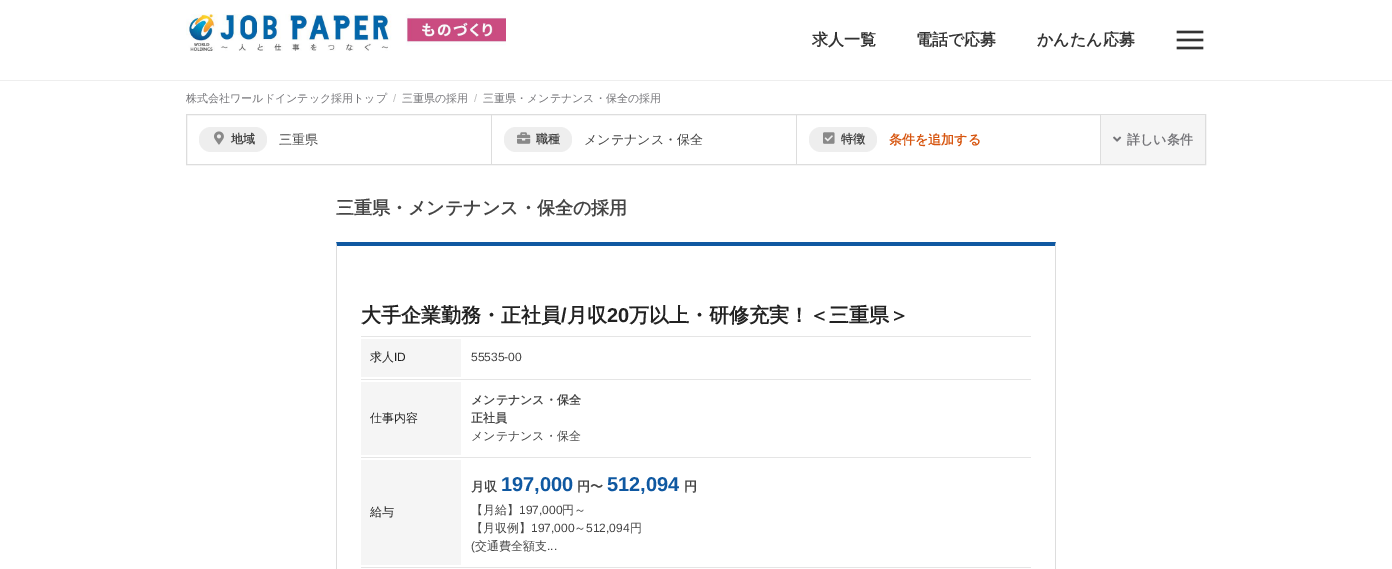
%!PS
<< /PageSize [1392 569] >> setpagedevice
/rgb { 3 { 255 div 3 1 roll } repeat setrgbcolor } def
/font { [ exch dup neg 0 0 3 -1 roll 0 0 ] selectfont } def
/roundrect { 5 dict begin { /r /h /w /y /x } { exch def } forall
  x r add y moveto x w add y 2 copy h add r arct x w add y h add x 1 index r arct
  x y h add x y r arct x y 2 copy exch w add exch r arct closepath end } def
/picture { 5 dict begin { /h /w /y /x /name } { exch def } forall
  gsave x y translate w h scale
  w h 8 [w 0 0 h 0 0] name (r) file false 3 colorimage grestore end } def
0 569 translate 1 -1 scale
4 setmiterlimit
255 255 255 rgb
0 0 1392 569 rectfill
238 238 238 rgb
0 80 1392 1 rectfill
(img/1.rgb) 186 14 320 37 picture
(img/2.rgb) 1176 30 28 20 picture
221 221 221 rgb
186.5 114.5 1019 50 rectstroke
491 115 1 49 rectfill
238 238 238 rgb
199 127 68 25 12 roundrect fill
(img/3.rgb) 214 131 10 14 picture
221 221 221 rgb
796 115 1 49 rectfill
238 238 238 rgb
504 127 68 25 12 roundrect fill
(img/4.rgb) 517 132 14 12 picture
221 221 221 rgb
1100 115 1 49 rectfill
238 238 238 rgb
809 127 68 25 12 roundrect fill
(img/5.rgb) 823 132 12 12 picture
245 245 245 rgb
1101 115 104 49 rectfill
(img/6.rgb) 1113 136 9 6 picture
15 88 161 rgb
336 242 moveto 1056 242 lineto 1055 246 lineto 337 246 lineto closepath fill
221 221 221 rgb
1056 242 moveto 1056 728 lineto 1055 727 lineto 1055 246 lineto closepath fill
336 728 moveto 336 242 lineto 337 246 lineto 337 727 lineto closepath fill
[
  [361 336 670 1 229 229 229]
  [361 339 100 38 245 245 245]
  [361 379 670 1 229 229 229]
  [361 382 100 73 245 245 245]
  [361 457 670 1 229 229 229]
  [361 460 100 105 245 245 245]
  [361 567 670 1 229 229 229]
] { aload pop rgb rectfill } forall
/WenQuanYiZenHei-Bold 16 font
51 51 51 rgb
[
  [(求人一覧) 812 45]
  [(電話で応募) 916 45]
  [(かんたん応募) 1037 45]
] { aload pop moveto show } forall
/WenQuanYiZenHei-Medium 11 font
116 116 120 rgb
186 102 moveto (株式会社ワールドインテック採用トップ) show
/LiberationSans-Regular 11 font
187 187 187 rgb
393 102 moveto (/) show
/WenQuanYiZenHei-Medium 11 font
116 116 120 rgb
402 102 moveto (三重県の採用) show
/LiberationSans-Regular 11 font
187 187 187 rgb
474 102 moveto (/) show
/WenQuanYiZenHei-Medium 11 font
116 116 120 rgb
483 102 moveto (三重県・メンテナンス・保全の採用) show
/WenQuanYiZenHei-Bold 12 font
69 69 69 rgb
231 143 moveto (地域) show
/WenQuanYiZenHei-Medium 13 font
279 144 moveto (三重県) show
/WenQuanYiZenHei-Bold 12 font
536 143 moveto (職種) show
/WenQuanYiZenHei-Medium 13 font
584 144 moveto (メンテナンス・保全) show
/WenQuanYiZenHei-Bold 12 font
841 143 moveto (特徴) show
/WenQuanYiZenHei-Bold 13 font
215 85 15 rgb
889 144 moveto (条件を追加する) show
116 116 120 rgb
1127 144 moveto (詳しい条件) show
/WenQuanYiZenHei-Bold 18 font
69 69 69 rgb
336 214 moveto (三重県・メンテナンス・保全の採用) show
/WenQuanYiZenHei-Bold 20 font
34 34 34 rgb
361 322 moveto (大手企業勤務・正社員) show
/LiberationSans-Bold 20 font
561 322 moveto (/) show
/WenQuanYiZenHei-Bold 20 font
567 322 moveto (月収) show
/LiberationSans-Bold 20 font
607 322 moveto (20) show
/WenQuanYiZenHei-Bold 20 font
629 322 moveto (万以上・研修充実！＜三重県＞) show
/WenQuanYiZenHei-Medium 12 font
370 361 moveto (求人) show
/LiberationSans-Regular 12 font
394 361 moveto (ID) show
69 69 69 rgb
471 361 moveto (55535-00) show
/WenQuanYiZenHei-Medium 12 font
34 34 34 rgb
370 422 moveto (仕事内容) show
/WenQuanYiZenHei-Bold 12 font
69 69 69 rgb
471 404 moveto (メンテナンス・保全) show
471 422 moveto (正社員) show
/WenQuanYiZenHei-Medium 12 font
471 440 moveto (メンテナンス・保全) show
34 34 34 rgb
370 516 moveto (給与) show
/WenQuanYiZenHei-Bold 13 font
69 69 69 rgb
471 491 moveto (月収) show
/LiberationSans-Bold 20 font
15 88 161 rgb
501 491 moveto (197,000) show
/WenQuanYiZenHei-Bold 13 font
69 69 69 rgb
577 491 moveto (円〜) show
/LiberationSans-Bold 20 font
15 88 161 rgb
607 491 moveto (512,094) show
/WenQuanYiZenHei-Bold 13 font
69 69 69 rgb
684 491 moveto (円) show
/WenQuanYiZenHei-Medium 12 font
471 514 moveto (【月給】) show
/LiberationSans-Regular 12 font
519 514 moveto (197,000) show
/WenQuanYiZenHei-Medium 12 font
562 514 moveto (円～) show
471 532 moveto (【月収例】) show
/LiberationSans-Regular 12 font
531 532 moveto (197,000) show
/WenQuanYiZenHei-Medium 12 font
574 532 moveto (～) show
/LiberationSans-Regular 12 font
586 532 moveto (512,094) show
/WenQuanYiZenHei-Medium 12 font
630 532 moveto (円) show
/LiberationSans-Regular 12 font
471 550 moveto (\() show
/WenQuanYiZenHei-Medium 12 font
475 550 moveto (交通費全額支) show
/LiberationSans-Regular 12 font
547 550 moveto (...) show
showpage
